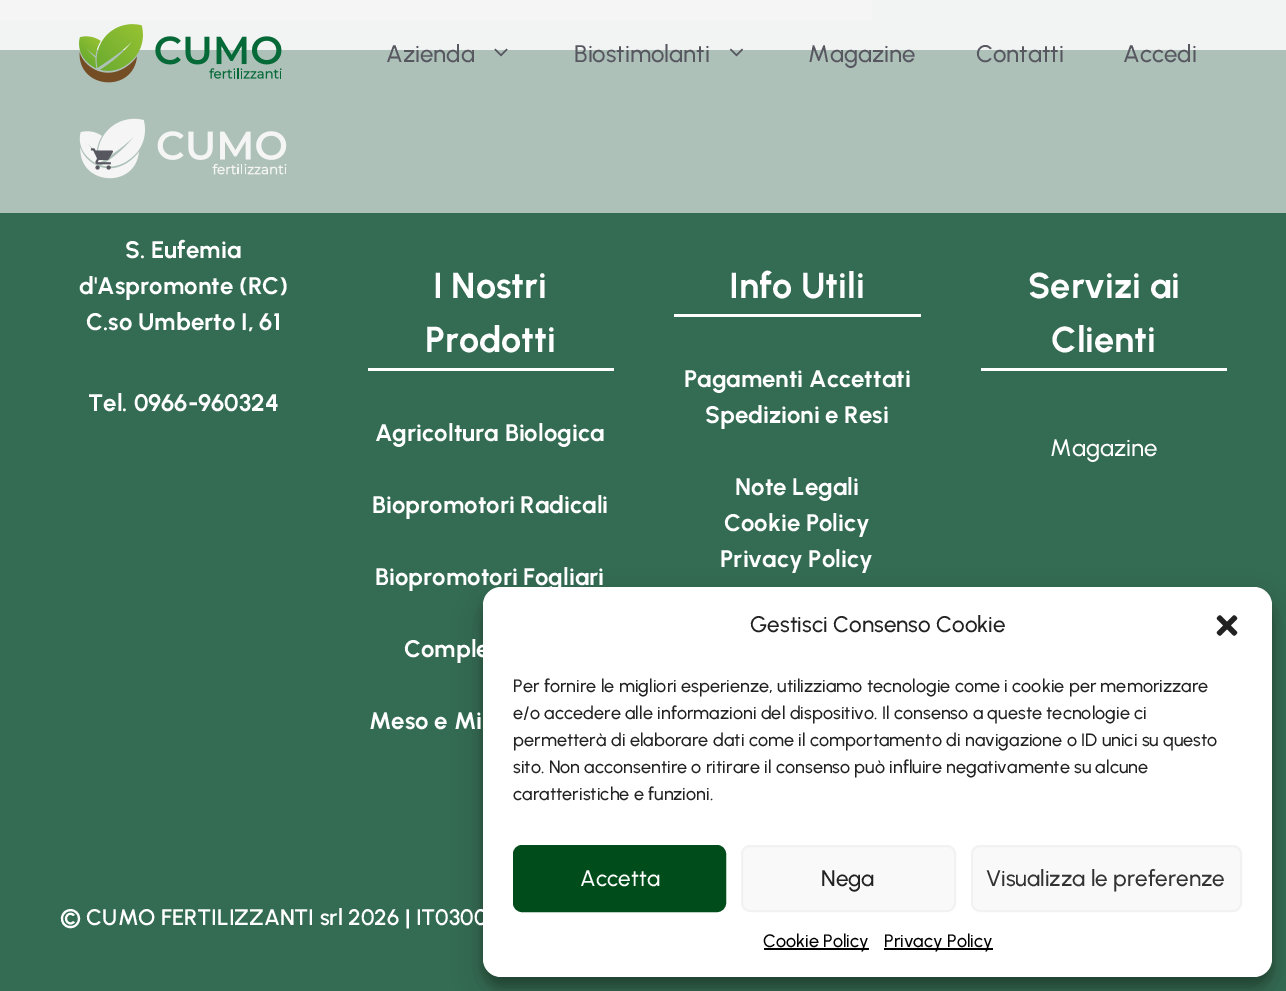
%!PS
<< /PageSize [1286 991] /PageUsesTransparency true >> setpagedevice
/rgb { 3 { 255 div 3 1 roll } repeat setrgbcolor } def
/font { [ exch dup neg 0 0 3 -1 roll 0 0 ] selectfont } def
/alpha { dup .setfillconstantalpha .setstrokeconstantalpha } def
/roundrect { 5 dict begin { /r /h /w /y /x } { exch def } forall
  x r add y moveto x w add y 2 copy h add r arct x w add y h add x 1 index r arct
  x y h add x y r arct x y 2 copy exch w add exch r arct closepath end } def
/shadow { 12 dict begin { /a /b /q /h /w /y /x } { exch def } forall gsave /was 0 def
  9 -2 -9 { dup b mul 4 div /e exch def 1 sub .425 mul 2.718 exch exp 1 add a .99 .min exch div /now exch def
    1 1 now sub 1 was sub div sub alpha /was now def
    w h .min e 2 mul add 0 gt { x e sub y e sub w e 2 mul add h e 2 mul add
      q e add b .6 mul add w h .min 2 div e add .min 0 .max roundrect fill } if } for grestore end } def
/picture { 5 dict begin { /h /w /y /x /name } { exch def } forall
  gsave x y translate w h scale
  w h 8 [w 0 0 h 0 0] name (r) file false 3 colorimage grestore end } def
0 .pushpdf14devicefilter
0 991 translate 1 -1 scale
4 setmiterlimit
242 243 243 rgb
0 0 1286 991 rectfill
245 245 245 rgb
0 0 872 20 rectfill
174 193 185 rgb
0 50 1286 163 rectfill
(img/1.rgb) 79 24 203 59 picture
(img/2.rgb) 494 48 14 9 picture
(img/3.rgb) 729 48 14 9 picture
(img/5.rgb) 79 118 208 61 picture
(img/4.rgb) 90 148 23 22 picture
[
  [0 213 1286 778 51 107 83]
  [368 368 246 3 255 255 255]
  [674 314 247 3 255 255 255]
  [981 368 246 3 255 255 255]
] { aload pop rgb rectfill } forall
0 0 0 rgb
483 596 789 390 18 4.5 0.23 shadow
483 602 789 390 18 15 0.19 shadow
255 255 255 rgb
483 587 789 390 18 roundrect fill
(img/6.rgb) 1216 615 22 21 picture
0 76 26 rgb
514 846 211 65 8 roundrect gsave fill grestore
2 setlinewidth
stroke
249 249 249 rgb
742 846 213 65 8 roundrect gsave fill grestore
242 242 242 rgb
stroke
249 249 249 rgb
972 846 269 65 8 roundrect gsave fill grestore
242 242 242 rgb
stroke
0 0 0 rgb
764 948 105 2 rectfill
884 948 109 2 rectfill
/Urbanist-Medium 24 font
87 87 96 rgb
[
  [(Azienda) 386 62]
  [(Biostimolanti) 574 62]
  [(Magazine) 808 62]
  [(Contatti) 976 62]
  [(Accedi) 1123 62]
] { aload pop moveto show } forall
/Urbanist-Bold 24 font
255 255 255 rgb
[
  [(S. Eufemia) 125 258]
  [(d'Aspromonte \(RC\)) 79 294]
  [(C.so Umberto I, 61) 86 330]
  [(Tel. 0966-960324) 88 411]
] { aload pop moveto show } forall
/Urbanist-Bold 36 font
433 298 moveto (I Nostri) show
425 352 moveto (Prodotti) show
/Urbanist-Bold 24 font
[
  [(Agricoltura Biologica) 375 441]
  [(Biopromotori Radicali) 372 513]
  [(Biopromotori Fogliari) 375 585]
  [(Comple) 404 657]
  [(Meso e Mi) 369 729]
] { aload pop moveto show } forall
/Urbanist-Bold 36 font
729 298 moveto (Info Utili) show
/Urbanist-Bold 24 font
[
  [(Pagamenti Accettati) 684 387]
  [(Spedizioni e Resi) 705 423]
  [(Note Legali) 735 495]
  [(Cookie Policy) 724 531]
  [(Privacy Policy) 720 567]
] { aload pop moveto show } forall
/Urbanist-Bold 36 font
1028 298 moveto (Servizi ai) show
1051 352 moveto (Clienti) show
/Urbanist-Medium 24 font
1050 456 moveto (Magazine) show
/Urbanist-SemiBold 22.5 font
60 925 moveto (© CUMO FERTILIZZANTI srl 2026 | IT0300) show
/Urbanist-Medium 22.5 font
34 34 34 rgb
750 632 moveto (Gestisci Consenso Cookie) show
/Urbanist-Medium 18 font
[
  [(Per fornire le migliori esperienze, utilizziamo tecnologie come i cookie per memorizzare) 513 692]
  [(e/o accedere alle informazioni del dispositivo. Il consenso a queste tecnologie ci) 513 719]
  [(permetterà di elaborare dati come il comportamento di navigazione o ID unici su questo) 513 746]
  [(sito. Non acconsentire o ritirare il consenso può influire negativamente su alcune) 513 773]
  [(caratteristiche e funzioni.) 513 800]
] { aload pop moveto show } forall
/Urbanist-Medium 22.5 font
255 255 255 rgb
580 886 moveto (Accetta) show
34 34 34 rgb
821 886 moveto (Nega) show
51 51 51 rgb
986 886 moveto (Visualizza le preferenze) show
/Urbanist-Medium 18 font
0 0 0 rgb
763 947 moveto (Cookie Policy) show
884 947 moveto (Privacy Policy) show
.poppdf14devicefilter showpage
